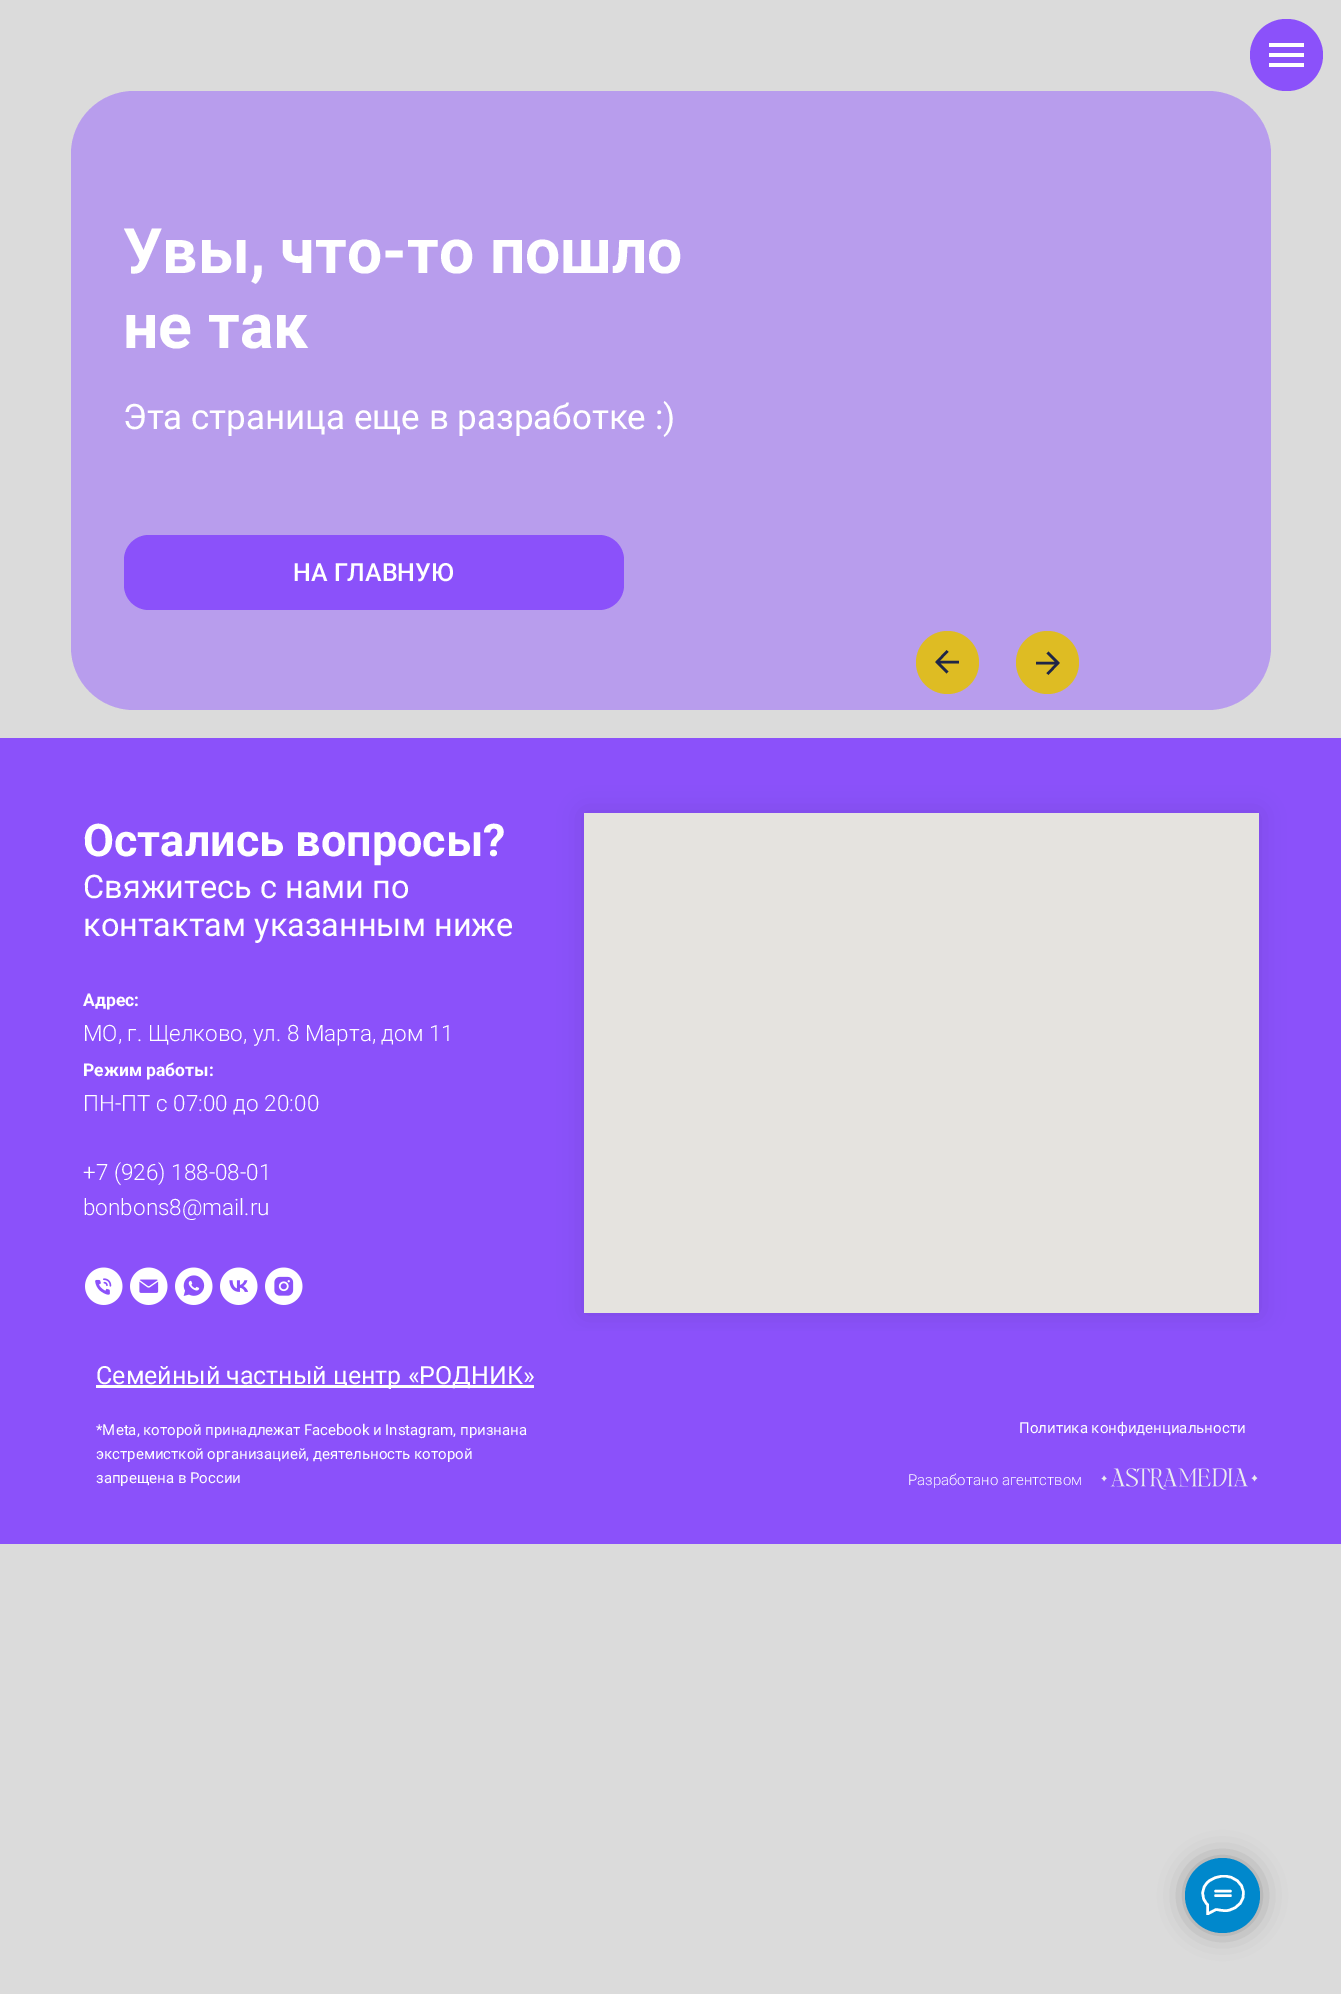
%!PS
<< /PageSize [1341 1994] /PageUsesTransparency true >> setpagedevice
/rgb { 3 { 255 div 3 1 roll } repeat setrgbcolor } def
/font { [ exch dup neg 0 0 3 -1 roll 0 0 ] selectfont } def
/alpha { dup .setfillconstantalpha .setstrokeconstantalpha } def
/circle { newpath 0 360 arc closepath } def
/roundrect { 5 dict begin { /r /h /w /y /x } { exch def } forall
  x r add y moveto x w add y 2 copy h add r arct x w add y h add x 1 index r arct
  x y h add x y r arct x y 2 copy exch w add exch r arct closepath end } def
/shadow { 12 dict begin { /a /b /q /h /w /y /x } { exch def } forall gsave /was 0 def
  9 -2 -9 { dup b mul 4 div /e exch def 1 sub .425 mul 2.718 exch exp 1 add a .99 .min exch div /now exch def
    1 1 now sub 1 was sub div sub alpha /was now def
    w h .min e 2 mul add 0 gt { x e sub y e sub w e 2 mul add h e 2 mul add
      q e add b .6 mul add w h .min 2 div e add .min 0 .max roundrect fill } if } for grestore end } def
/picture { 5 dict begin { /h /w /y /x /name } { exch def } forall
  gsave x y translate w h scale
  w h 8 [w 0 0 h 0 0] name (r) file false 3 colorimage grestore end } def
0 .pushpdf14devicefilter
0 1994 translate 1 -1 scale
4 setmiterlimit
219 219 219 rgb
0 0 1341 1994 rectfill
139 81 250 rgb
1250 19 73 72 36 roundrect fill
[
  [1269 43 35 4 255 255 255]
  [1269 53 35 4 255 255 255]
  [1269 63 35 4 255 255 255]
] { aload pop rgb rectfill } forall
184 157 237 rgb
71 91 1200 619 63 roundrect fill
139 81 250 rgb
124 535 500 75 25 roundrect fill
222 188 35 rgb
947.5 662.5 31.5 circle fill
31 38 71 rgb
2.5 setlinewidth
937 662 moveto 959 662 lineto 947.5 651 moveto 937 662 lineto 947.5 672.5 lineto stroke
222 188 35 rgb
1047.5 662.5 31.5 circle fill
31 38 71 rgb
1058 663 moveto 1036 663 lineto 1047.5 674 moveto 1058 663 lineto 1047.5 652.5 lineto stroke
139 81 250 rgb
0 738 1341 593 rectfill
(img/1.rgb) 85 1267 38 38 picture
(img/2.rgb) 130 1267 38 38 picture
(img/3.rgb) 175 1267 38 38 picture
(img/4.rgb) 220 1267 38 38 picture
(img/5.rgb) 265 1267 38 38 picture
0 0 0 rgb
584 813 675 500 0 12.5 0.1 shadow
[
  [584 813 675 500 229 227 223]
  [0 1331 1341 213 139 81 250]
  [96 1385 438 3 255 255 255]
] { aload pop rgb rectfill } forall
(img/6.rgb) 1101 1468 157 22 picture
0 0 0 rgb
1185 1858 75 75 37.5 12.5 0.3 shadow
0 136 204 rgb
1222.5 1895.5 37.5 circle fill
gsave
1201 1875 44 40 rectclip
255 255 255 rgb
1 setlinecap
1 setlinejoin
1215.5 1891 moveto 1230.5 1891 lineto 1215.5 1895.5 moveto 1230.5 1895.5 lineto 1207.5 1904.5 moveto 1200.5 1898 1201 1887.5 1208.5 1881.5 curveto 1212.5 1878 1218 1876.5 1223 1876 curveto 1247.5 1876 1251.5 1906 1227.5 1910.5 curveto 1223 1911 1220 1910 1216 1909.5 curveto 1207.5 1914 lineto closepath stroke
grestore
/Roboto-Bold 62.5 font
255 255 255 rgb
123 273 moveto (Увы, что-то пошло) show
123 348 moveto (не так) show
/Roboto-Regular 35 font
123 429 moveto (Эта страница еще в разработке :\)) show
/Roboto-Medium 25 font
293 581 moveto (НА ГЛАВНУЮ) show
/Roboto-Bold 45 font
83 856 moveto (Остались вопросы?) show
/Roboto-Regular 32.5 font
83 898 moveto (Свяжитесь с нами по) show
83 936 moveto (контактам указанным ниже) show
/Roboto-Bold 17.5 font
83 1006 moveto (Адрес:) show
/Roboto-Light 22.5 font
83 1041 moveto (МО, г. Щелково, ул. 8 Марта, дом 11) show
/Roboto-Bold 17.5 font
83 1076 moveto (Режим работы:) show
/Roboto-Light 22.5 font
[
  [(ПН-ПТ с 07:00 до 20:00) 83 1111]
  [(+7 \(926\) 188-08-01) 83 1180]
  [(bonbons8@mail.ru) 83 1215]
] { aload pop moveto show } forall
/Roboto-Regular 25 font
96 1384 moveto (Семейный частный центр «РОДНИК») show
/Roboto-Regular 15 font
[
  [(*Metа, которой принадлежат Facebook и Instagram, признана) 96 1435]
  [(экстремисткой организацией, деятельность которой) 96 1459]
  [(запрещена в России) 96 1483]
  [(Политика конфиденциальности) 1019 1433]
] { aload pop moveto show } forall
/Roboto-Light 15 font
908 1485 moveto (Разработано агентством) show
.poppdf14devicefilter showpage
